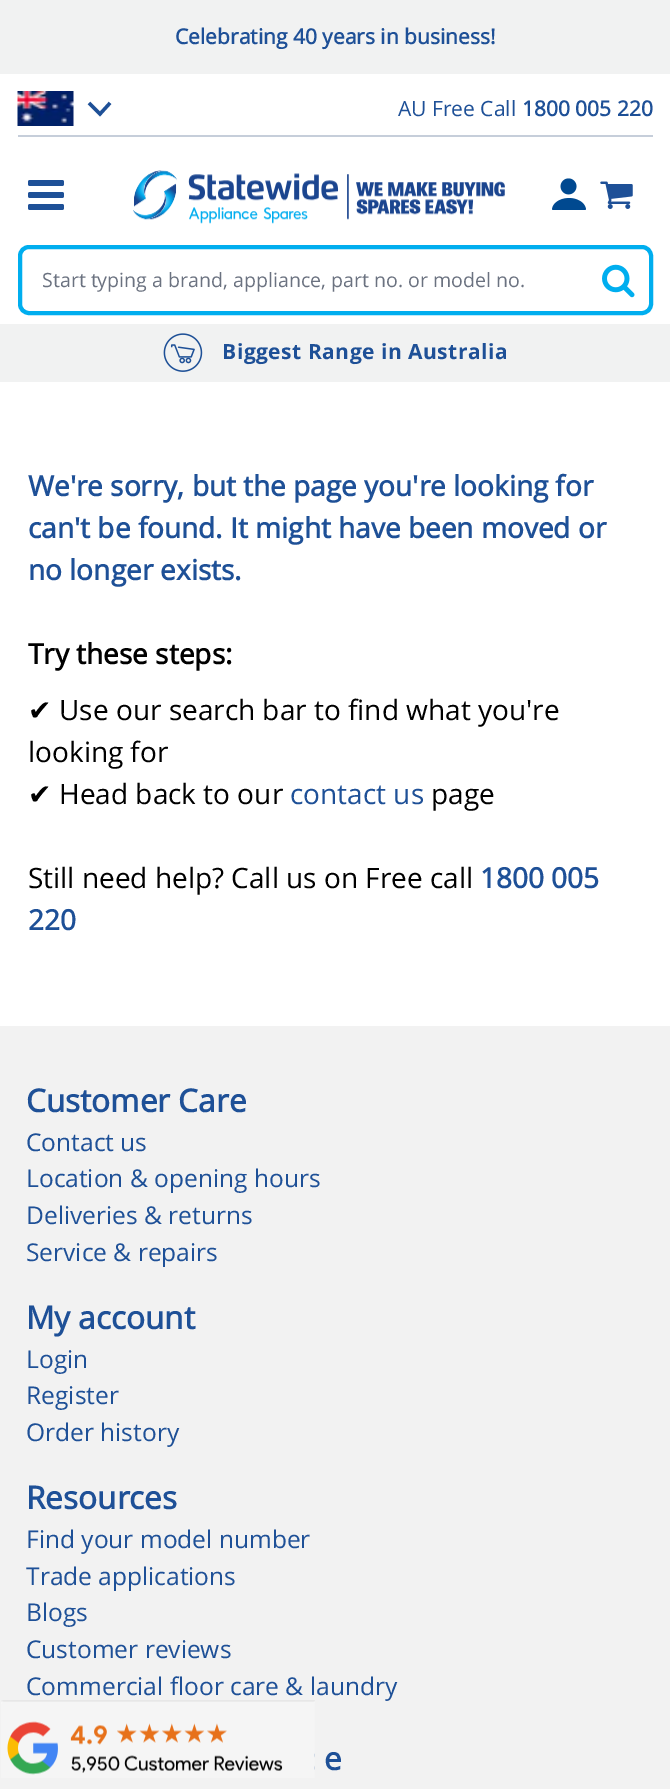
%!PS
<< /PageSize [670 1789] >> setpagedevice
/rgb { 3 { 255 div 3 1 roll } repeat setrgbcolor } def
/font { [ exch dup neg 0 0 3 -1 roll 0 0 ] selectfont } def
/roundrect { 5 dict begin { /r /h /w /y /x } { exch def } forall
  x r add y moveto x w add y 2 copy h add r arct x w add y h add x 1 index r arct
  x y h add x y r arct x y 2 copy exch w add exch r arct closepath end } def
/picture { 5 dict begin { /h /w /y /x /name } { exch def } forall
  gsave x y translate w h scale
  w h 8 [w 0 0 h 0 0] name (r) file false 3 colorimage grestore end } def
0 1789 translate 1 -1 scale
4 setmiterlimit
255 255 255 rgb
0 0 670 1789 rectfill
241 242 242 rgb
0 0 670 74 rectfill
198 206 218 rgb
18 135 635 2 rectfill
(img/1.rgb) 17 91 57 35 picture
30 80 151 rgb
3.3 setlinewidth
110 103 moveto 100 114 lineto 89 103 lineto stroke
(img/2.rgb) 28 180 36 30 picture
(img/3.rgb) 133 170 372 54 picture
(img/4.rgb) 552 178 34 32 picture
(img/5.rgb) 600 181 33 28 picture
0 174 239 rgb
4 setlinewidth
20 247 631 66 9 roundrect stroke
(img/6.rgb) 602 264 33 34 picture
241 242 242 rgb
0 324 670 58 rectfill
(img/7.rgb) 163 333 40 39 picture
242 242 242 rgb
0 1026 670 763 rectfill
/OpenSans-Bold 21 font
30 80 151 rgb
175 44 moveto (Celebrating 40 years in business!) show
/OpenSans-Regular 21 font
398 116 moveto (AU Free Call) show
/OpenSans-Bold 21 font
522 116 moveto (1800 005 220) show
/OpenSans-Regular 19.6 font
107 114 128 rgb
42 287 moveto (Start typing a brand, appliance, part no. or model no.) show
/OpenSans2-Bold 21 font
30 80 151 rgb
222 359 moveto 0.5 0 (Biggest Range in Australia) ashow
/OpenSans-Bold 28 font
[
  [(We're sorry, but the page you're looking for) 28 496]
  [(can't be found. It might have been moved or) 28 538]
  [(no longer exists.) 28 580]
] { aload pop moveto show } forall
0 0 0 rgb
28 664 moveto (Try these steps:) show
/DejaVuSans-Regular 28 font
28 720 moveto (✔) show
/OpenSans-Regular 28 font
59 720 moveto (Use our search bar to find what you're) show
28 762 moveto (looking for) show
/DejaVuSans-Regular 28 font
28 804 moveto (✔) show
/OpenSans-Regular 28 font
59 804 moveto (Head back to our) show
30 80 151 rgb
290 804 moveto (contact us) show
0 0 0 rgb
431 804 moveto (page) show
28 888 moveto (Still need help? Call us on Free call) show
/OpenSans-Bold 28 font
30 80 151 rgb
480 888 moveto (1800 005) show
28 930 moveto (220) show
/OpenSans-Bold 31.5 font
26 1112 moveto (Customer Care) show
/OpenSans-Regular 24.5 font
[
  [(Contact us) 26 1151]
  [(Location & opening hours) 26 1187]
  [(Deliveries & returns) 26 1224]
  [(Service & repairs) 26 1261]
] { aload pop moveto show } forall
/OpenSans-Bold 31.5 font
26 1329 moveto (My account) show
/OpenSans-Regular 24.5 font
[
  [(Login) 26 1368]
  [(Register) 26 1404]
  [(Order history) 26 1441]
] { aload pop moveto show } forall
/OpenSans-Bold 31.5 font
26 1509 moveto (Resources) show
/OpenSans-Regular 24.5 font
[
  [(Find your model number) 26 1548]
  [(Trade applications) 26 1585]
  [(Blogs) 26 1621]
  [(Customer reviews) 26 1658]
  [(Commercial floor care & laundry) 26 1695]
] { aload pop moveto show } forall
(img/8.rgb) 1 1700 314 78 picture
/OpenSans-Bold 31.5 font
324 1770 moveto (e) show
showpage
